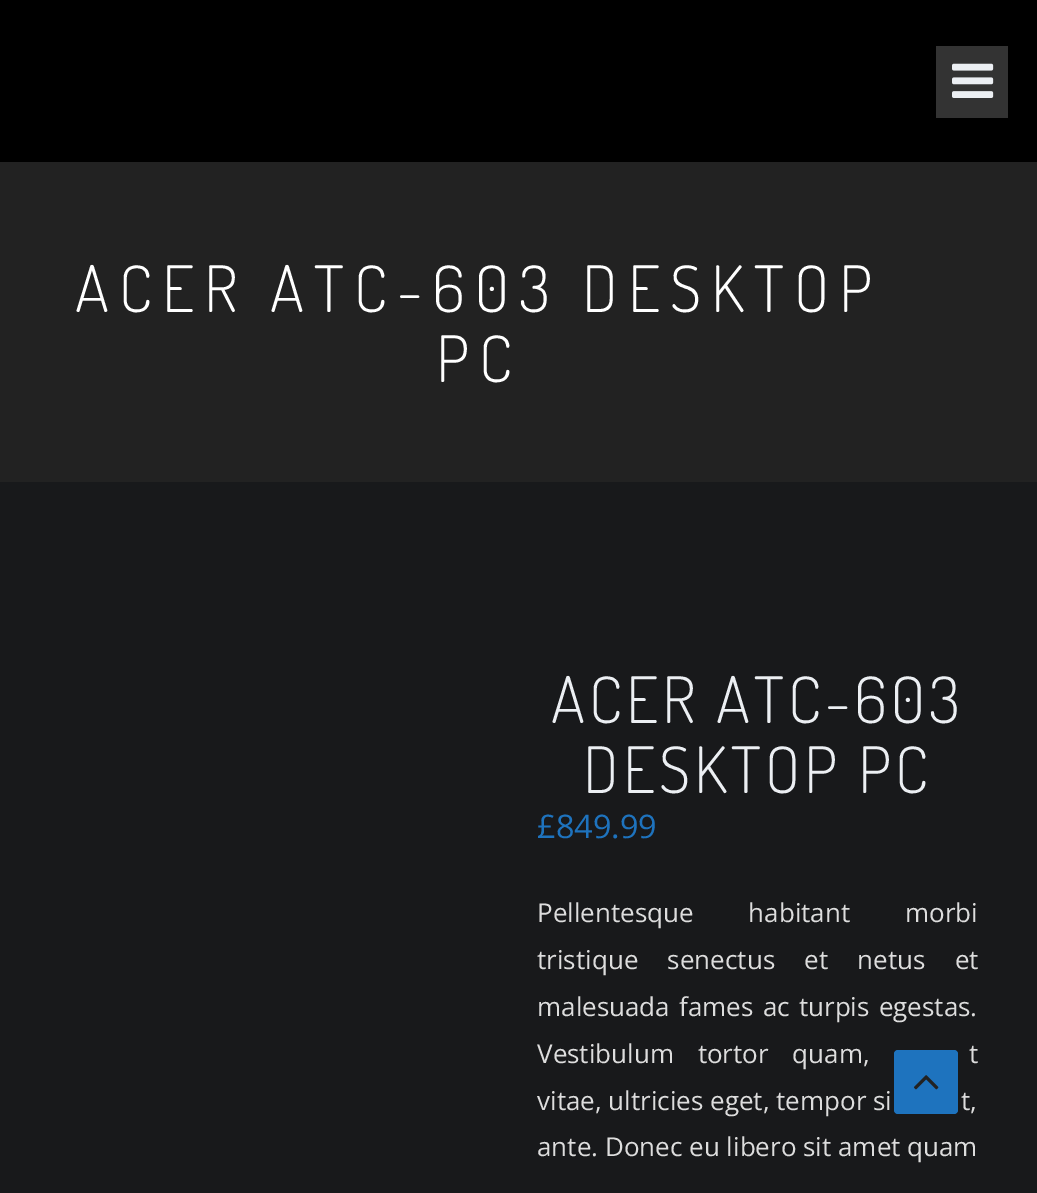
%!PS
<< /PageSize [1037 1193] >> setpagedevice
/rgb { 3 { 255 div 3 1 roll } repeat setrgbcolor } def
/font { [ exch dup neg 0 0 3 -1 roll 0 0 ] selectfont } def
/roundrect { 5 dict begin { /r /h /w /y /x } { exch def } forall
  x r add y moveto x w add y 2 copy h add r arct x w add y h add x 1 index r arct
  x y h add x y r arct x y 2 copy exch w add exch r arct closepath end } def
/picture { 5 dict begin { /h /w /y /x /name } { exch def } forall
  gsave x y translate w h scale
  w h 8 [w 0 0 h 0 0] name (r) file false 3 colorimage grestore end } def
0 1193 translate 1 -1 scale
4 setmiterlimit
0 0 0 rgb
0 0 1037 1193 rectfill
51 51 51 rgb
936 46 72 72 rectfill
(img/1.rgb) 952 63 42 35 picture
34 34 34 rgb
0 162 1037 320 rectfill
24 25 27 rgb
0 482 1037 711 rectfill
30 115 190 rgb
894 1050 64 64 4 roundrect fill
(img/2.rgb) 913 1075 26 15 picture
/Dosis-Light 64 font
255 255 255 rgb
75 312 moveto 10 0 (ACER ATC-603 DESKTOP) ashow
436 382 moveto 10 0 (PC) ashow
236 239 243 rgb
551 723 moveto 4 0 (ACER ATC-603) ashow
583 793 moveto 4 0 (DESKTOP PC) ashow
/OpenSans-Regular 32.5 font
30 115 190 rgb
537 838 moveto (£849.99) show
/OpenSans-Regular 26 font
221 221 221 rgb
537 922 moveto 48 0 32 (Pellentesque habitant morbi) widthshow
537 969 moveto 22.5 0 32 (tristique senectus et netus et) widthshow
537 1016 moveto 2.5 0 32 (malesuada fames ac turpis egestas.) widthshow
537 1063 moveto 17 0 32 (Vestibulum tortor quam,) widthshow
969 1063 moveto 17 0 32 (t) widthshow
[
  [(vitae, ultricies eget, tempor si) 537 1110]
  [(t,) 961 1110]
  [(ante. Donec eu libero sit amet quam) 537 1156]
] { aload pop moveto show } forall
showpage
